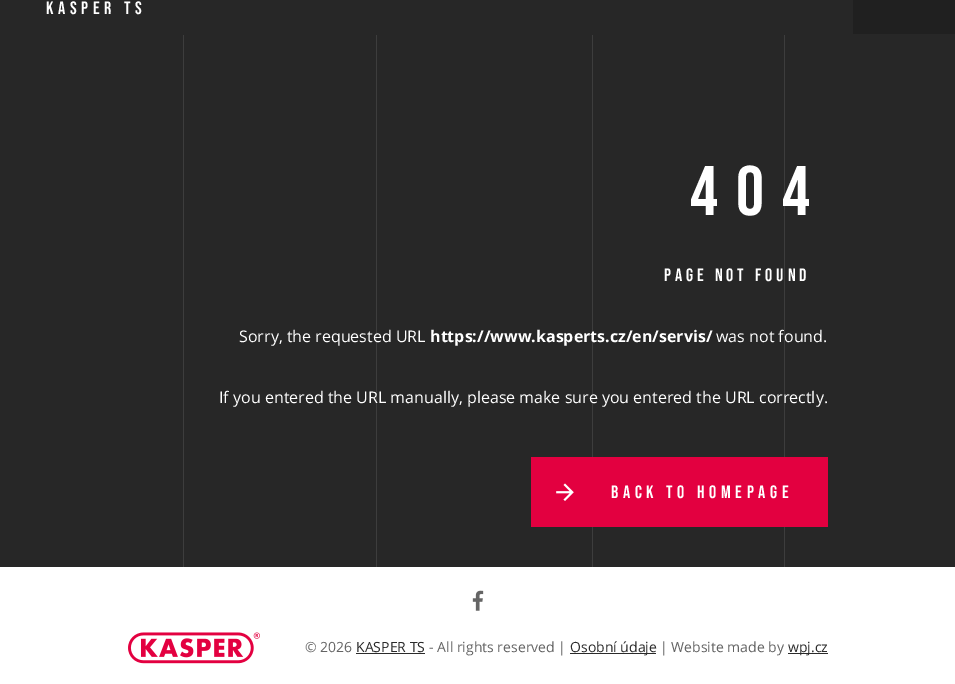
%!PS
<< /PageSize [955 684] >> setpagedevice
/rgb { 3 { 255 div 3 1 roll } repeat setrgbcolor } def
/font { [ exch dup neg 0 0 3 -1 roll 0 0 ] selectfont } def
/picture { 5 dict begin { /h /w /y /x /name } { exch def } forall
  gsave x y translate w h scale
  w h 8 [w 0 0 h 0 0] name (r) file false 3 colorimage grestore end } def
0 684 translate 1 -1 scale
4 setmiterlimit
39 39 39 rgb
0 0 955 684 rectfill
[
  [853 0 102 34 32 32 32]
  [183 35 1 532 61 61 61]
  [376 35 1 532 61 61 61]
  [592 35 1 532 61 61 61]
  [784 35 1 532 61 61 61]
  [531 457 297 70 227 0 64]
] { aload pop rgb rectfill } forall
(img/1.rgb) 556 483 18 18 picture
255 255 255 rgb
0 567 955 117 rectfill
(img/2.rgb) 472 590 12 21 picture
(img/3.rgb) 128 632 132 32 picture
[
  [356 653 69 1 43 43 43]
  [570 653 86 1 43 43 43]
  [788 653 40 1 43 43 43]
] { aload pop rgb rectfill } forall
/BebasNeue-Regular 18 font
255 255 255 rgb
46 14 moveto 4.7 0 (KASPER TS) ashow
/BebasNeue-Regular 70 font
690 215 moveto 18 0 (404) ashow
/BebasNeue-Regular 18 font
664 281 moveto 4 0 (PAGE NOT FOUND) ashow
/OpenSans-Regular 16 font
239 342 moveto (Sorry, the requested URL) show
/OpenSans-Bold 16 font
430 342 moveto (https://www.kasperts.cz/en/servis/) show
/OpenSans-Regular 16 font
716 342 moveto (was not found.) show
219 403 moveto (If you entered the URL manually, please make sure you entered the URL correctly.) show
/BebasNeue-Regular 18 font
611 498 moveto 4.7 0 (BACK TO HOMEPAGE) ashow
/OpenSans-Regular 14 font
100 100 100 rgb
305 652 moveto (© 2026) show
43 43 43 rgb
356 652 moveto (KASPER TS) show
100 100 100 rgb
429 652 moveto (- All rights reserved |) show
43 43 43 rgb
570 652 moveto (Osobní údaje) show
100 100 100 rgb
660 652 moveto (| Website made by) show
43 43 43 rgb
788 652 moveto (wpj.cz) show
showpage
